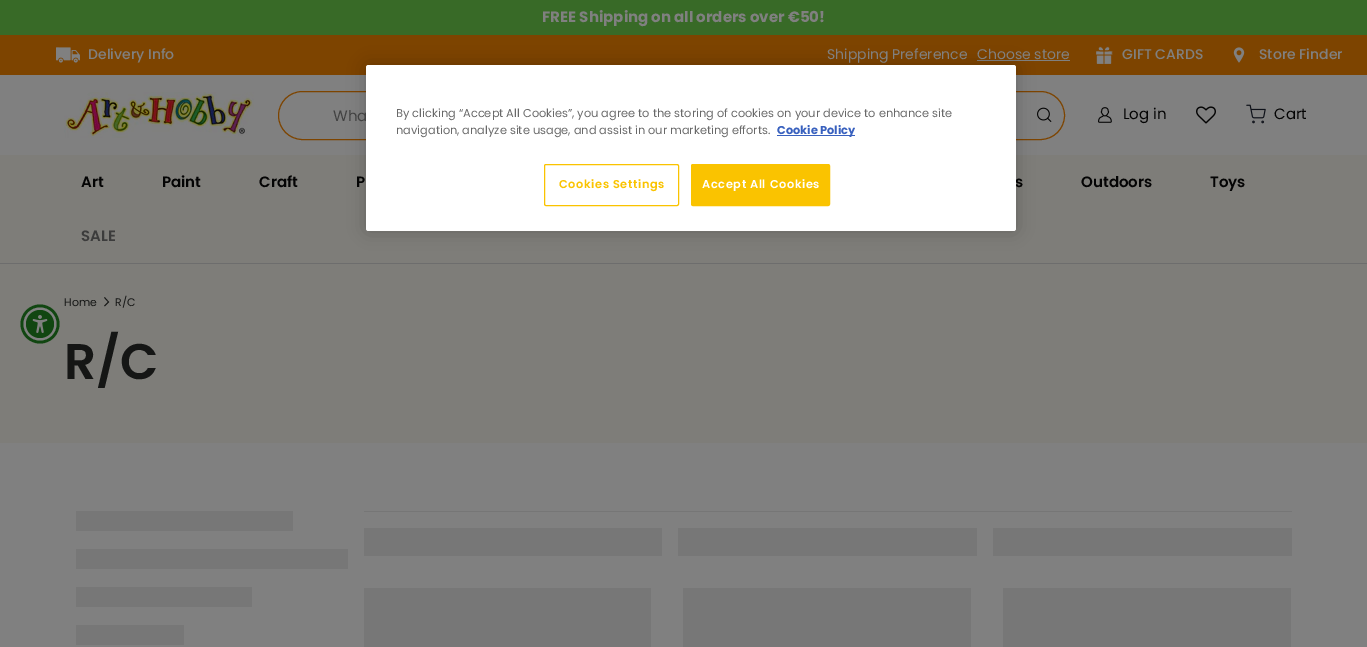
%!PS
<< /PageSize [1367 647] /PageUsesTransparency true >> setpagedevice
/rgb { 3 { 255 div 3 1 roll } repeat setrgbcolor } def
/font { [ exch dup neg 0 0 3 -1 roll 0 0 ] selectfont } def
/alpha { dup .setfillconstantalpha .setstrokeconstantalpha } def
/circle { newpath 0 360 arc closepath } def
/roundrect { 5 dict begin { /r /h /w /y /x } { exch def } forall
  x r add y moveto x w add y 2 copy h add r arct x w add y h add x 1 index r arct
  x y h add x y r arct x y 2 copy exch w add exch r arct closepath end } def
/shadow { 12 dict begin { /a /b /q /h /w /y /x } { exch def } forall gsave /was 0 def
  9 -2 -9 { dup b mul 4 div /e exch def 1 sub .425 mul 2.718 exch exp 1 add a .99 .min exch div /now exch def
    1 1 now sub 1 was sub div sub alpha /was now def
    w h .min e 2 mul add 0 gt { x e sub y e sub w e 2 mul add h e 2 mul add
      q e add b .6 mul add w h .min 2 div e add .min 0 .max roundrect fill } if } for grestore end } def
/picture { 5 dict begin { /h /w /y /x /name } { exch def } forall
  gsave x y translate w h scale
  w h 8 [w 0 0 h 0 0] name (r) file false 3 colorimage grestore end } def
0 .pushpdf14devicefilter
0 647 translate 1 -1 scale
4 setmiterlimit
128 128 128 rgb
0 0 1367 647 rectfill
56 106 39 rgb
0 0 1367 35 rectfill
125 68 0 rgb
0 35 1367 40 rectfill
(img/1.rgb) 56 47 24 16 picture
128 128 128 rgb
977 60 93 1 rectfill
(img/2.rgb) 1096 46 17 18 picture
(img/3.rgb) 1233 47 12 16 picture
109 109 109 rgb
0 263 1367 1 rectfill
(img/4.rgb) 64 92 190 46 picture
125 68 0 rgb
278.5 91.5 786 48 24 roundrect stroke
(img/5.rgb) 1037 107 15 15 picture
(img/6.rgb) 1098 107 14 16 picture
(img/7.rgb) 1196 106 20 18 picture
(img/8.rgb) 1246 104 20 20 picture
126 125 121 rgb
0 155 1367 108 rectfill
0 0 0 rgb
366 65 650 166 2.5 9 0.2 shadow
126 125 121 rgb
0 264 1367 179 rectfill
17 70 17 rgb
40 324 19.5 circle fill
128 128 128 rgb
40 324 16.5 circle fill
17 70 17 rgb
40 324 14 circle fill
(img/9.rgb) 32 315 16 18 picture
21 22 21 rgb
0.8 setlinewidth
104.5 297.5 moveto 108.5 302 lineto 104.5 306 lineto stroke
[
  [76 511 217 20 119 119 119]
  [76 549 272 20 119 119 119]
  [76 587 176 20 119 119 119]
  [76 625 108 20 119 119 119]
  [364 511 928 1 118 118 118]
  [364 528 298 28 119 119 119]
  [678 528 299 28 119 119 119]
  [993 528 299 28 119 119 119]
  [364 588 287 59 119 119 119]
  [683 588 288 59 119 119 119]
  [1003 588 288 59 119 119 119]
] { aload pop rgb rectfill } forall
/Poppins-Bold 15 font
128 128 128 rgb
542 22 moveto (FREE Shipping on all orders over €50!) show
/Poppins-Medium 14 font
88 59 moveto (Delivery Info) show
/Poppins-Regular 14 font
827 59 moveto (Shipping Preference) show
977 59 moveto (Choose store) show
/Poppins-Medium 14 font
1122 59 moveto (GIFT CARDS) show
1259 59 moveto (Store Finder) show
/Poppins-Regular 15 font
66 66 66 rgb
333 121 moveto (Wha) show
4 4 4 rgb
1123 119 moveto (Log in) show
1274 119 moveto (Cart) show
/Poppins-SemiBold 15 font
[
  [(Art) 81 187]
  [(Paint) 162 187]
  [(Craft) 259 187]
  [(P) 356 187]
  [(s) 1015 187]
  [(Outdoors) 1081 187]
  [(Toys) 1210 187]
] { aload pop moveto show } forall
60 60 60 rgb
81 241 moveto (SALE) show
255 255 255 rgb
366 65 650 166 2.5 roundrect fill
/Poppins-Regular 11.4 font
105 105 105 rgb
396 117 moveto (By clicking “Accept All Cookies”, you agree to the storing of cookies on your device to enhance site) show
396 134 moveto (navigation, analyze site usage, and assist in our marketing efforts.) show
56 96 190 rgb
777 135 78 1 rectfill
/Poppins-Bold 11.4 font
777 134 moveto (Cookie Policy) show
250 195 0 rgb
1 setlinewidth
544.5 164.5 134 41 1.5 roundrect stroke
/Poppins-SemiBold 11.4 font
559 188 moveto 0.6 0 (Cookies Settings) ashow
691.5 164.5 138 41 1.5 roundrect gsave fill grestore
stroke
255 255 255 rgb
702 188 moveto 0.6 0 (Accept All Cookies) ashow
/Poppins-Regular 11 font
21 22 21 rgb
64 306 moveto (Home) show
115 306 moveto (R/C) show
/Poppins-SemiBold 50 font
64 379 moveto (R/C) show
.poppdf14devicefilter showpage
